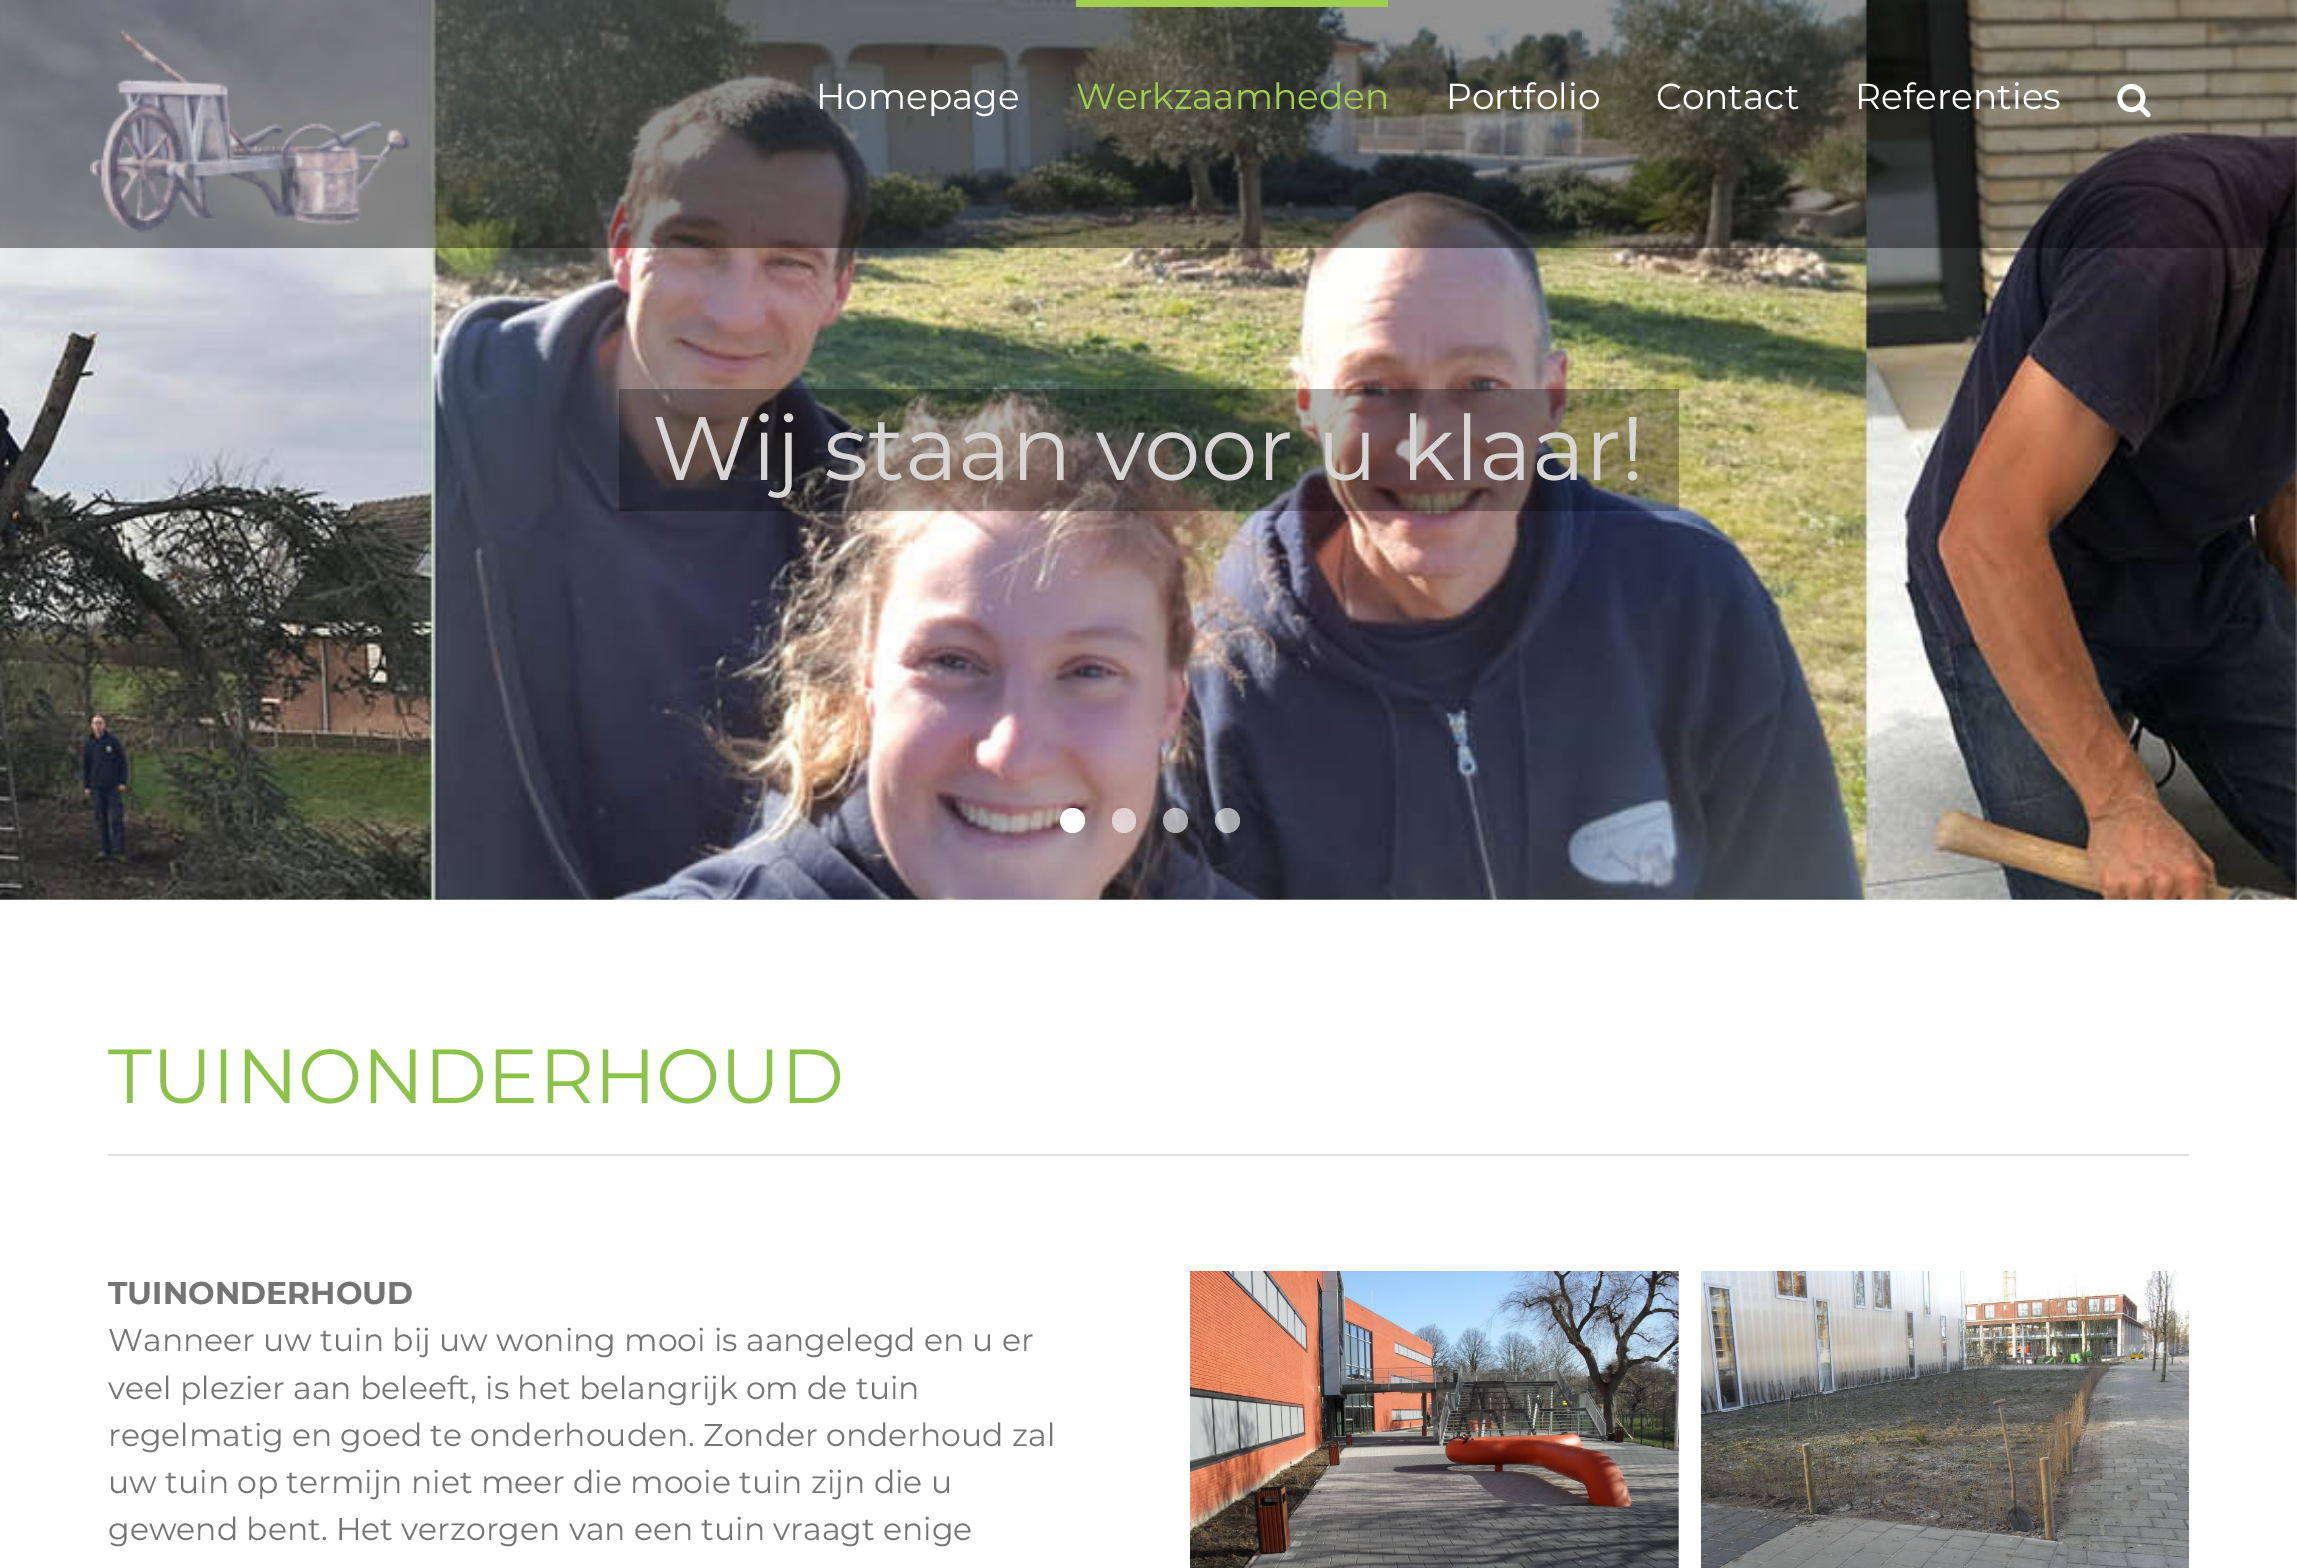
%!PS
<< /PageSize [2297 1568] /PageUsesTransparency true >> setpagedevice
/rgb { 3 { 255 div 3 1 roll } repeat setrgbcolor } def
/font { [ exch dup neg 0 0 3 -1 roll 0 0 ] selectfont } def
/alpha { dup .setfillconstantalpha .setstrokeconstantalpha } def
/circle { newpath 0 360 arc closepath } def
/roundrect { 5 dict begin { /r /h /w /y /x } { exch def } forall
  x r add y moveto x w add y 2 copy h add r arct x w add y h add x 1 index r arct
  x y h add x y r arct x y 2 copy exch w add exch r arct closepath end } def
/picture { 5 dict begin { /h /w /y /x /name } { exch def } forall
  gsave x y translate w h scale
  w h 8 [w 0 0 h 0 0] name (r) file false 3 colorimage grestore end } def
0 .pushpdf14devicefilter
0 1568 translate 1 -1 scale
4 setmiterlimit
255 255 255 rgb
0 0 2297 1568 rectfill
(img/3.rgb) 0 0 2297 900 picture
0.44 alpha
7 7 7 rgb
0 0 2297 248 rectfill
1 alpha
(img/1.rgb) 90 29 320 204 picture
160 206 78 rgb
1076 0 312 7 rectfill
(img/2.rgb) 2117 83 34 35 picture
0.3 alpha
0 0 0 rgb
619 389 1060 122 rectfill
1 alpha
255 255 255 rgb
1072.5 820.5 12.5 circle fill
0.6 alpha
1112 808 24 25 12 roundrect fill
1175.5 820.5 12.5 circle fill
1227.5 820.5 12.5 circle fill
1 alpha
224 222 222 rgb
108 1154 2081 2 rectfill
(img/4.rgb) 1190 1271 489 297 picture
(img/5.rgb) 1701 1271 488 297 picture
/Montserrat-Regular 36 font
255 255 255 rgb
816 109 moveto (Homepage) show
160 206 78 rgb
1076 109 moveto (Werkzaamheden) show
255 255 255 rgb
[
  [(Portfolio) 1446 109]
  [(Contact) 1656 109]
  [(Referenties) 1855 109]
] { aload pop moveto show } forall
/Montserrat-Regular 90 font
216 214 212 rgb
652 480 moveto (Wij staan voor u klaar!) show
/Montserrat-Regular 76.5 font
139 195 74 rgb
108 1103 moveto (TUINONDERHOUD) show
/Montserrat-Bold 31.5 font
116 116 116 rgb
108 1304 moveto (TUINONDERHOUD) show
/Montserrat-Regular 31.5 font
[
  [(Wanneer uw tuin bij uw woning mooi is aangelegd en u er) 108 1351]
  [(veel plezier aan beleeft, is het belangrijk om de tuin) 108 1399]
  [(regelmatig en goed te onderhouden. Zonder onderhoud zal) 108 1446]
  [(uw tuin op termijn niet meer die mooie tuin zijn die u) 108 1493]
  [(gewend bent. Het verzorgen van een tuin vraagt enige) 108 1540]
] { aload pop moveto show } forall
.poppdf14devicefilter showpage
